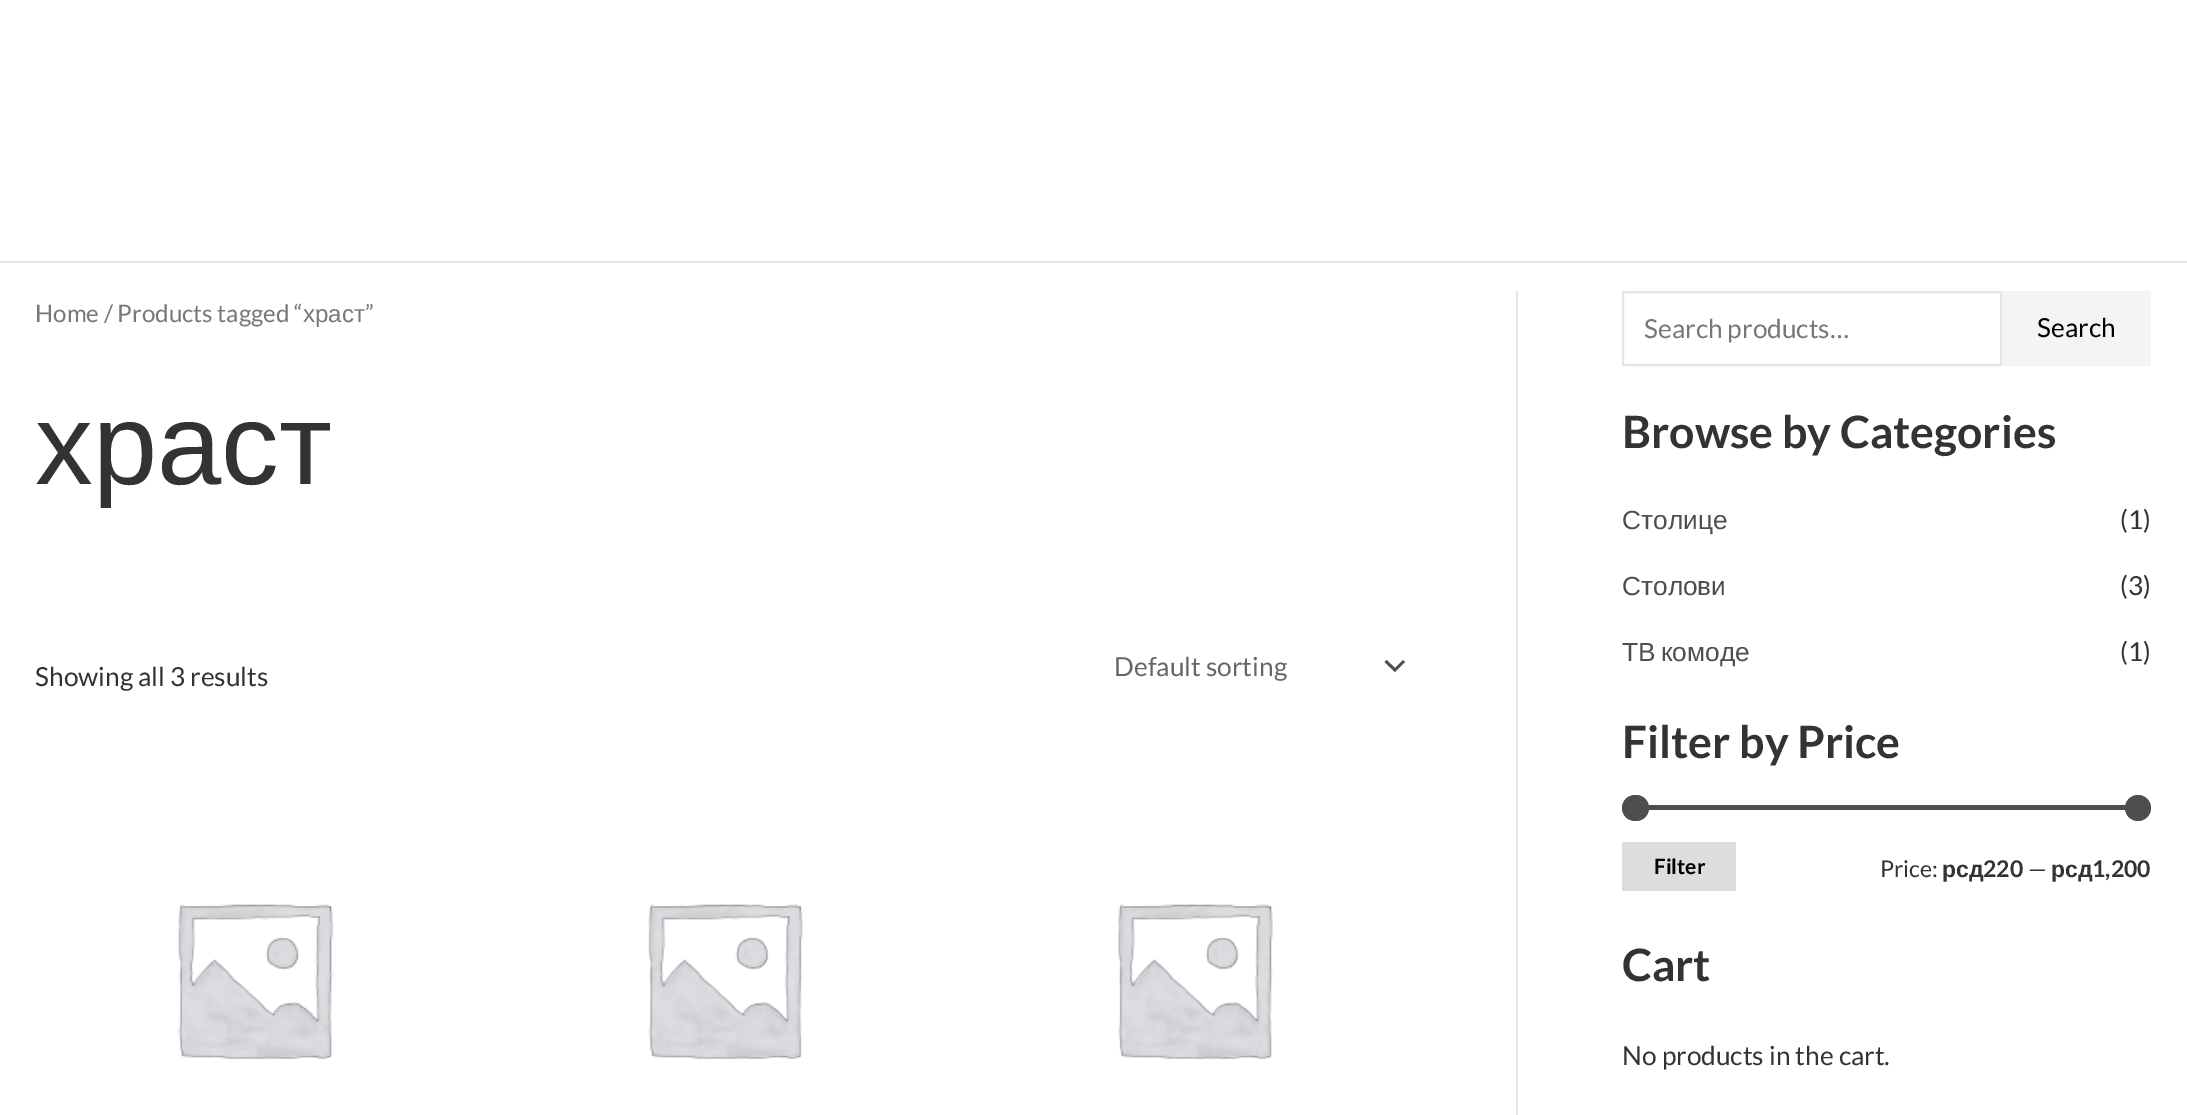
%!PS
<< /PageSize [2187 1115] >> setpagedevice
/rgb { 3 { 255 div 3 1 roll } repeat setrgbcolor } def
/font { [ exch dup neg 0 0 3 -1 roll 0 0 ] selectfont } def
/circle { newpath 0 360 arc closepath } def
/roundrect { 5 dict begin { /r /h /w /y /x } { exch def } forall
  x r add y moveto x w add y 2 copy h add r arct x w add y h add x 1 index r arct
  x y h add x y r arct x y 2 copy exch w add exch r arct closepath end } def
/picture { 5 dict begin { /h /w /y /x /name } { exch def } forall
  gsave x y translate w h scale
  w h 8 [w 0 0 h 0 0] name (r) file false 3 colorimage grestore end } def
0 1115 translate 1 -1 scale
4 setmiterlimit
255 255 255 rgb
0 0 2187 1115 rectfill
229 229 229 rgb
0 261 2187 2 rectfill
1516 291 2 824 rectfill
75 79 88 rgb
1384.5 662 moveto 1395 672 lineto 1405 662 lineto 1403 660 lineto 1395 668 lineto 1386.5 660 lineto closepath fill
(img/1.rgb) 178 904 155 155 picture
(img/2.rgb) 648 904 155 155 picture
(img/3.rgb) 1118 904 155 155 picture
229 229 229 rgb
2 setlinewidth
1623 292 378 73 rectstroke
244 244 244 rgb
2002 291 149 75 rectfill
78 78 78 rgb
1648 805 478 5 rectfill
1622 795 27 26 13 roundrect fill
2138 808 13 circle fill
221 221 221 rgb
1622 842 114 49 rectfill
/Lato-Regular 24.1 font
119 119 119 rgb
35 322 moveto (Home / Products tagged “) show
365 322 moveto (”) show
/LiberationSans-Regular 24.1 font
303 322 moveto (храст) show
/LiberationSans-Regular 115.5 font
51 51 51 rgb
35 484 moveto (храст) show
/Lato-Regular 26.25 font
35 686 moveto (Showing all 3 results) show
102 102 102 rgb
1114 676 moveto (Default sorting) show
119 119 119 rgb
1644 338 moveto (Search products…) show
0 0 0 rgb
2037 337 moveto (Search) show
/Lato-Bold 44.6 font
51 51 51 rgb
1622 448 moveto (Browse by Categories) show
/LiberationSans-Regular 26.25 font
78 78 78 rgb
1622 529 moveto (Столице) show
/Lato-Regular 26.25 font
51 51 51 rgb
2120 529 moveto (\(1\)) show
/LiberationSans-Regular 26.25 font
78 78 78 rgb
1622 595 moveto (Столови) show
/Lato-Regular 26.25 font
51 51 51 rgb
2120 595 moveto (\(3\)) show
/LiberationSans-Regular 26.25 font
78 78 78 rgb
1622 661 moveto -2 0 32 (ТВ комоде) widthshow
/Lato-Regular 26.25 font
51 51 51 rgb
2120 661 moveto (\(1\)) show
/Lato-Bold 44.6 font
1622 758 moveto (Filter by Price) show
/Lato-Bold 21 font
0 0 0 rgb
1654 874 moveto (Filter) show
/Lato-Regular 23 font
51 51 51 rgb
1880 877 moveto (Price:) show
/LiberationSans-Bold 23 font
1942 877 moveto (рсд) show
/Lato-Bold 23 font
1983 877 moveto (220) show
/Lato-Regular 23 font
2028 877 moveto (—) show
/LiberationSans-Bold 23 font
2051 877 moveto (рсд) show
/Lato-Bold 23 font
2092 877 moveto (1,200) show
/Lato-Bold 44.6 font
1622 981 moveto (Cart) show
/Lato-Regular 26.25 font
1622 1065 moveto (No products in the cart.) show
showpage
